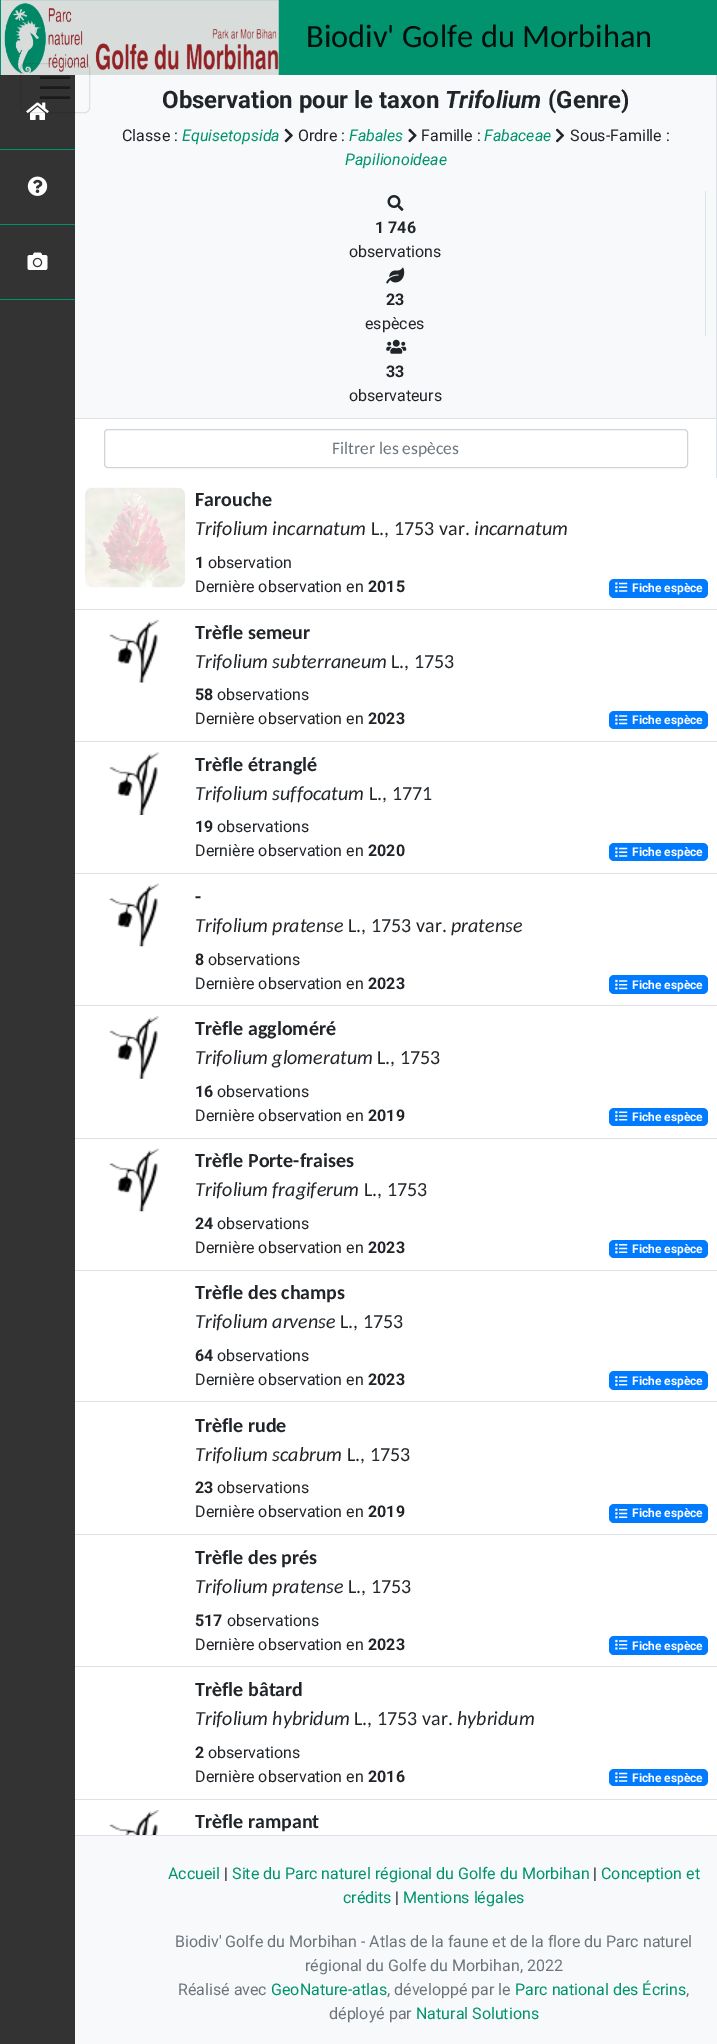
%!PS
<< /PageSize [717 2044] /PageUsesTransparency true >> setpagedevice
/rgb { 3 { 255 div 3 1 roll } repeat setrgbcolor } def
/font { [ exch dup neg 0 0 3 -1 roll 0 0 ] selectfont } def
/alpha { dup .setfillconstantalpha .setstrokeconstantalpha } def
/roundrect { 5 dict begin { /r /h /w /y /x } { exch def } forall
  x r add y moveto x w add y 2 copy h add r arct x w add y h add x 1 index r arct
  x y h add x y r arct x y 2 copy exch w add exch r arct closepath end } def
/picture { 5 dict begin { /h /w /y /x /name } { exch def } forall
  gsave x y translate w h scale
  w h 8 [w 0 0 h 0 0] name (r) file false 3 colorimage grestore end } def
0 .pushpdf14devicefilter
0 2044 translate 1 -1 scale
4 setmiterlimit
222 226 230 rgb
0 0 717 2044 rectfill
0 147 110 rgb
0 0 717 75 rectfill
(img/1.rgb) 1 0 278 75 picture
51 51 51 rgb
0 75 75 1969 rectfill
(img/2.rgb) 26 102 23 18 picture
248 249 250 rgb
75 75 641 343 rectfill
0.1 alpha
0 0 0 rgb
20.5 63.5 69 49 4.5 roundrect stroke
1 alpha
26 26 26 rgb
2.5 setlinewidth
1 setlinecap
41 77.5 moveto 69 77.5 lineto 41 87.5 moveto 69 87.5 lineto 41 97.5 moveto 69 97.5 lineto stroke
0 147 110 rgb
0 149 75 1 rectfill
0 224 75 1 rectfill
(img/3.rgb) 27 176 21 20 picture
0 299 75 1 rectfill
(img/4.rgb) 27 252 21 18 picture
(img/5.rgb) 284 128 9 15 picture
(img/6.rgb) 408 128 9 15 picture
(img/7.rgb) 555 128 10 15 picture
222 226 230 rgb
705 191 1 145 rectfill
(img/8.rgb) 387 195 17 16 picture
(img/9.rgb) 386 267 19 17 picture
(img/10.rgb) 386 339 21 15 picture
255 255 255 rgb
75 419 641 59 rectfill
206 212 218 rgb
1 setlinewidth
0 setlinecap
104.5 429.5 583 38 3.5 roundrect stroke
255 255 255 rgb
75 478 642 1357 rectfill
222 226 230 rgb
75 609 642 1 rectfill
(img/11.rgb) 85 487 100 101 picture
0 123 255 rgb
609 579 99 19 5 roundrect fill
(img/12.rgb) 615 582 13 11 picture
222 226 230 rgb
75 741 642 1 rectfill
(img/13.rgb) 109 620 51 63 picture
0 123 255 rgb
609 711 99 18 5 roundrect fill
(img/14.rgb) 615 714 13 11 picture
222 226 230 rgb
75 873 642 1 rectfill
(img/15.rgb) 109 752 51 63 picture
0 123 255 rgb
609 843 99 18 5 roundrect fill
(img/12.rgb) 615 847 13 11 picture
222 226 230 rgb
75 1005 642 1 rectfill
(img/16.rgb) 109 883 51 64 picture
0 123 255 rgb
609 975 99 19 5 roundrect fill
(img/14.rgb) 615 979 13 11 picture
222 226 230 rgb
75 1138 642 1 rectfill
(img/17.rgb) 109 1016 50 63 picture
0 123 255 rgb
609 1108 99 18 5 roundrect fill
(img/18.rgb) 615 1111 13 10 picture
222 226 230 rgb
75 1270 642 1 rectfill
(img/16.rgb) 109 1148 51 64 picture
0 123 255 rgb
609 1240 99 18 5 roundrect fill
(img/19.rgb) 615 1243 13 11 picture
222 226 230 rgb
75 1401 642 1 rectfill
0 123 255 rgb
609 1371 99 19 5 roundrect fill
(img/18.rgb) 615 1376 13 10 picture
222 226 230 rgb
75 1534 642 1 rectfill
0 123 255 rgb
609 1504 99 19 5 roundrect fill
(img/19.rgb) 615 1508 13 11 picture
222 226 230 rgb
75 1666 642 1 rectfill
0 123 255 rgb
609 1636 99 19 5 roundrect fill
(img/14.rgb) 615 1639 13 11 picture
222 226 230 rgb
75 1799 642 1 rectfill
0 123 255 rgb
609 1769 99 17 5 roundrect fill
(img/12.rgb) 615 1772 13 11 picture
(img/20.rgb) 109 1810 51 25 picture
248 249 250 rgb
75 1836 642 208 rectfill
/Carlito-Regular 32.5 font
0 15 11 rgb
306 47 moveto (Biodiv' Golfe du Morbihan) show
/Roboto-Bold 24 font
33 37 41 rgb
162 108 moveto (Observation pour le taxon) show
/Roboto-BoldItalic 24 font
445 108 moveto (Trifolium) show
/Roboto-Bold 24 font
548 108 moveto (\(Genre\)) show
/Roboto-Regular 16 font
122 141 moveto (Classe :) show
/Roboto-Italic 16 font
0 147 110 rgb
182 141 moveto (Equisetopsida) show
/Roboto-Regular 16 font
33 37 41 rgb
298 141 moveto (Ordre :) show
/Roboto-Italic 16 font
0 147 110 rgb
349 141 moveto (Fabales) show
/Roboto-Regular 16 font
33 37 41 rgb
421 141 moveto (Famille :) show
/Roboto-Italic 16 font
0 147 110 rgb
484 141 moveto (Fabaceae) show
/Roboto-Regular 16 font
33 37 41 rgb
570 141 moveto (Sous-Famille :) show
/Roboto-Italic 16 font
0 147 110 rgb
345 165 moveto (Papilionoideae) show
/Roboto-Bold 16 font
33 37 41 rgb
375 233 moveto (1 746) show
/Roboto-Regular 16 font
349 257 moveto (observations) show
/Roboto-Bold 16 font
386 305 moveto (23) show
/Roboto-Regular 16 font
365 329 moveto (espèces) show
/Roboto-Bold 16 font
386 377 moveto (33) show
/Roboto-Regular 16 font
349 401 moveto (observateurs) show
/Carlito-Regular 17.5 font
108 117 125 rgb
332 454 moveto (Filtrer les espèces) show
/Carlito-Bold 20 font
33 37 41 rgb
195 506 moveto (Farouche) show
/Carlito-Italic 20 font
195 535 moveto (Trifolium incarnatum) show
/Carlito-Regular 20 font
371 535 moveto (L., 1753 var.) show
/Carlito-Italic 20 font
474 535 moveto (incarnatum) show
/Roboto-Bold 16 font
195 568 moveto (1) show
/Roboto-Regular 16 font
208 568 moveto (observation) show
195 592 moveto (Dernière observation en) show
/Roboto-Bold 16 font
368 592 moveto (2015) show
/Roboto-Bold 12 font
255 255 255 rgb
632 592 moveto (Fiche espèce) show
/Carlito-Bold 20 font
33 37 41 rgb
195 639 moveto (Trèfle semeur) show
/Carlito-Italic 20 font
195 668 moveto (Trifolium subterraneum) show
/Carlito-Regular 20 font
391 668 moveto (L., 1753) show
/Roboto-Bold 16 font
195 700 moveto (58) show
/Roboto-Regular 16 font
217 700 moveto (observations) show
195 724 moveto (Dernière observation en) show
/Roboto-Bold 16 font
368 724 moveto (2023) show
/Roboto-Bold 12 font
255 255 255 rgb
632 724 moveto (Fiche espèce) show
/Carlito-Bold 20 font
33 37 41 rgb
195 771 moveto (Trèfle étranglé) show
/Carlito-Italic 20 font
195 800 moveto (Trifolium suffocatum) show
/Carlito-Regular 20 font
369 800 moveto (L., 1771) show
/Roboto-Bold 16 font
195 832 moveto (19) show
/Roboto-Regular 16 font
217 832 moveto (observations) show
195 856 moveto (Dernière observation en) show
/Roboto-Bold 16 font
368 856 moveto (2020) show
/Roboto-Bold 12 font
255 255 255 rgb
632 856 moveto (Fiche espèce) show
/Carlito-Bold 20 font
33 37 41 rgb
195 903 moveto (-) show
/Carlito-Italic 20 font
195 932 moveto (Trifolium pratense) show
/Carlito-Regular 20 font
348 932 moveto (L., 1753 var.) show
/Carlito-Italic 20 font
451 932 moveto (pratense) show
/Roboto-Bold 16 font
195 965 moveto (8) show
/Roboto-Regular 16 font
208 965 moveto (observations) show
195 989 moveto (Dernière observation en) show
/Roboto-Bold 16 font
368 989 moveto (2023) show
/Roboto-Bold 12 font
255 255 255 rgb
632 989 moveto (Fiche espèce) show
/Carlito-Bold 20 font
33 37 41 rgb
195 1035 moveto (Trèfle aggloméré) show
/Carlito-Italic 20 font
195 1064 moveto (Trifolium glomeratum) show
/Carlito-Regular 20 font
377 1064 moveto (L., 1753) show
/Roboto-Bold 16 font
195 1097 moveto (16) show
/Roboto-Regular 16 font
217 1097 moveto (observations) show
195 1121 moveto (Dernière observation en) show
/Roboto-Bold 16 font
368 1121 moveto (2019) show
/Roboto-Bold 12 font
255 255 255 rgb
632 1121 moveto (Fiche espèce) show
/Carlito-Bold 20 font
33 37 41 rgb
195 1167 moveto (Trèfle Porte-fraises) show
/Carlito-Italic 20 font
195 1196 moveto (Trifolium fragiferum) show
/Carlito-Regular 20 font
364 1196 moveto (L., 1753) show
/Roboto-Bold 16 font
195 1229 moveto (24) show
/Roboto-Regular 16 font
217 1229 moveto (observations) show
195 1253 moveto (Dernière observation en) show
/Roboto-Bold 16 font
368 1253 moveto (2023) show
/Roboto-Bold 12 font
255 255 255 rgb
632 1253 moveto (Fiche espèce) show
/Carlito-Bold 20 font
33 37 41 rgb
195 1299 moveto (Trèfle des champs) show
/Carlito-Italic 20 font
195 1328 moveto (Trifolium arvense) show
/Carlito-Regular 20 font
340 1328 moveto (L., 1753) show
/Roboto-Bold 16 font
195 1361 moveto (64) show
/Roboto-Regular 16 font
217 1361 moveto (observations) show
195 1385 moveto (Dernière observation en) show
/Roboto-Bold 16 font
368 1385 moveto (2023) show
/Roboto-Bold 12 font
255 255 255 rgb
632 1385 moveto (Fiche espèce) show
/Carlito-Bold 20 font
33 37 41 rgb
195 1432 moveto (Trèfle rude) show
/Carlito-Italic 20 font
195 1461 moveto (Trifolium scabrum) show
/Carlito-Regular 20 font
347 1461 moveto (L., 1753) show
/Roboto-Bold 16 font
195 1493 moveto (23) show
/Roboto-Regular 16 font
217 1493 moveto (observations) show
195 1517 moveto (Dernière observation en) show
/Roboto-Bold 16 font
368 1517 moveto (2019) show
/Roboto-Bold 12 font
255 255 255 rgb
632 1517 moveto (Fiche espèce) show
/Carlito-Bold 20 font
33 37 41 rgb
195 1564 moveto (Trèfle des prés) show
/Carlito-Italic 20 font
195 1593 moveto (Trifolium pratense) show
/Carlito-Regular 20 font
348 1593 moveto (L., 1753) show
/Roboto-Bold 16 font
195 1626 moveto (517) show
/Roboto-Regular 16 font
227 1626 moveto (observations) show
195 1650 moveto (Dernière observation en) show
/Roboto-Bold 16 font
368 1650 moveto (2023) show
/Roboto-Bold 12 font
255 255 255 rgb
632 1650 moveto (Fiche espèce) show
/Carlito-Bold 20 font
33 37 41 rgb
195 1696 moveto (Trèfle bâtard) show
/Carlito-Italic 20 font
195 1725 moveto (Trifolium hybridum) show
/Carlito-Regular 20 font
354 1725 moveto (L., 1753 var.) show
/Carlito-Italic 20 font
457 1725 moveto (hybridum) show
/Roboto-Bold 16 font
195 1758 moveto (2) show
/Roboto-Regular 16 font
208 1758 moveto (observations) show
195 1782 moveto (Dernière observation en) show
/Roboto-Bold 16 font
368 1782 moveto (2016) show
/Roboto-Bold 12 font
255 255 255 rgb
632 1782 moveto (Fiche espèce) show
/Carlito-Bold 20 font
33 37 41 rgb
195 1828 moveto (Trèfle rampant) show
/Roboto-Regular 16 font
0 147 110 rgb
168 1879 moveto (Accueil) show
33 37 41 rgb
224 1879 moveto (|) show
0 147 110 rgb
232 1879 moveto (Site du Parc naturel régional du Golfe du Morbihan) show
33 37 41 rgb
593 1879 moveto (|) show
0 147 110 rgb
601 1879 moveto (Conception et) show
343 1903 moveto (crédits) show
33 37 41 rgb
395 1903 moveto (|) show
0 147 110 rgb
403 1903 moveto (Mentions légales) show
108 117 125 rgb
[
  [(Biodiv' Golfe du Morbihan - Atlas de la faune et de la flore du Parc naturel) 175 1947]
  [(régional du Golfe du Morbihan, 2022) 305 1971]
  [(Réalisé avec) 178 1995]
] { aload pop moveto show } forall
0 147 110 rgb
271 1995 moveto (GeoNature-atlas) show
108 117 125 rgb
387 1995 moveto (, développé par le) show
0 147 110 rgb
515 1995 moveto (Parc national des Écrins) show
108 117 125 rgb
686 1995 moveto (,) show
329 2019 moveto (déployé par) show
0 147 110 rgb
416 2019 moveto (Natural Solutions) show
.poppdf14devicefilter showpage
